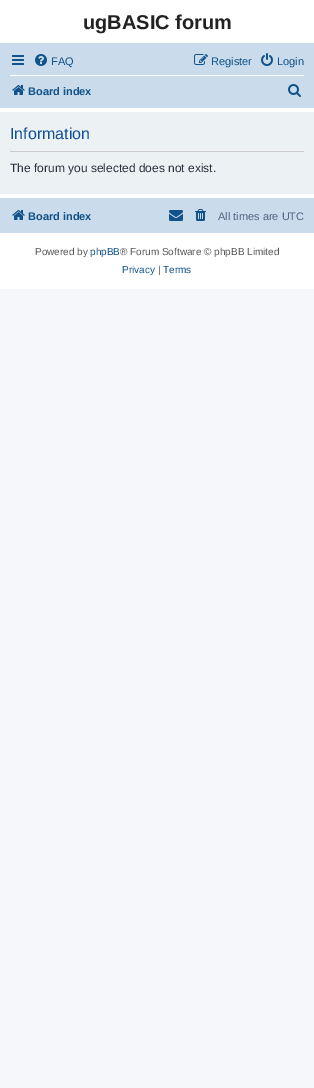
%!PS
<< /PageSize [314 1088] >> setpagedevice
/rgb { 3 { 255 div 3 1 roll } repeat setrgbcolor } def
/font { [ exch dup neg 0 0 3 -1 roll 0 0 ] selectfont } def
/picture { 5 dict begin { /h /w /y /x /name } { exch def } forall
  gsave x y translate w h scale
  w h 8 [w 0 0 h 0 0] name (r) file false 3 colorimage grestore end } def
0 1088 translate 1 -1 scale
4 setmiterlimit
245 247 250 rgb
0 0 314 1088 rectfill
255 255 255 rgb
0 0 314 289 rectfill
202 220 235 rgb
0 43 314 65 rectfill
(img/1.rgb) 12 55 12 10 picture
(img/2.rgb) 35 54 12 12 picture
(img/3.rgb) 194 54 14 11 picture
(img/4.rgb) 261 53 12 13 picture
255 255 255 rgb
10 75 294 1 rectfill
(img/5.rgb) 12 85 13 10 picture
(img/6.rgb) 288 84 13 13 picture
[
  [0 112 314 82 236 241 243]
  [10 151 294 1 204 204 204]
  [0 198 314 35 202 220 235]
] { aload pop rgb rectfill } forall
(img/5.rgb) 12 210 13 10 picture
(img/7.rgb) 169 210 14 11 picture
(img/8.rgb) 195 209 11 12 picture
/LiberationSans-Bold 20 font
34 34 34 rgb
83 29 moveto (ugBASIC forum) show
/LiberationSans-Regular 11 font
16 82 137 rgb
[
  [(FAQ) 51 65]
  [(Register) 211 65]
  [(Login) 277 65]
] { aload pop moveto show } forall
/LiberationSans-Bold 11 font
28 95 moveto (Board index) show
/LiberationSans-Regular 16 font
17 80 152 rgb
10 139 moveto (Information) show
/LiberationSans-Regular 12 font
40 49 63 rgb
10 172 moveto (The forum you selected does not exist.) show
/LiberationSans-Bold 11 font
16 82 137 rgb
28 220 moveto (Board index) show
/LiberationSans-Regular 11 font
83 100 130 rgb
218 220 moveto (All times are UTC) show
/LiberationSans-Regular 10 font
85 85 85 rgb
35 255 moveto (Powered by) show
16 82 137 rgb
90 255 moveto (phpBB) show
85 85 85 rgb
120 255 moveto (® Forum Software © phpBB Limited) show
16 82 137 rgb
122 273 moveto (Privacy) show
85 85 85 rgb
158 273 moveto (|) show
16 82 137 rgb
163 273 moveto (Terms) show
showpage
